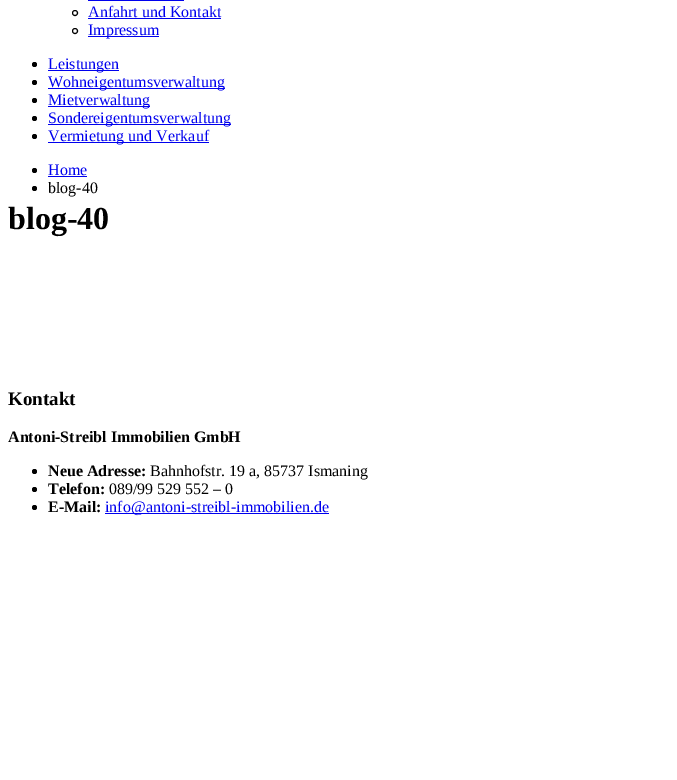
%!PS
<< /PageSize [677 780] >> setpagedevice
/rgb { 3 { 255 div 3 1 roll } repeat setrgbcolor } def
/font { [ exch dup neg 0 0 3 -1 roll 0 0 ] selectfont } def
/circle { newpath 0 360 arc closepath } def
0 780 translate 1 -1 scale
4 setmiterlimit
255 255 255 rgb
0 0 677 780 rectfill
0 0 238 rgb
88 0 96 1 rectfill
0 0 0 rgb
75 13 2.5 circle stroke
0 0 238 rgb
88 18 133 1 rectfill
0 0 0 rgb
75 31 2.5 circle stroke
0 0 238 rgb
88 36 71 1 rectfill
0 0 0 rgb
34.5 64.5 2.5 circle fill
0 0 238 rgb
48 70 71 1 rectfill
0 0 0 rgb
34.5 82.5 2.5 circle fill
0 0 238 rgb
48 88 177 1 rectfill
0 0 0 rgb
34.5 100.5 2.5 circle fill
0 0 238 rgb
48 106 102 1 rectfill
0 0 0 rgb
34.5 118.5 2.5 circle fill
0 0 238 rgb
48 124 183 1 rectfill
0 0 0 rgb
34.5 136.5 2.5 circle fill
0 0 238 rgb
48 142 161 1 rectfill
0 0 0 rgb
34.5 170.5 2.5 circle fill
0 0 238 rgb
48 176 39 1 rectfill
0 0 0 rgb
34.5 188.5 2.5 circle fill
34.5 471.5 2.5 circle fill
34.5 489.5 2.5 circle fill
34.5 507.5 2.5 circle fill
0 0 238 rgb
105 513 224 1 rectfill
/LiberationSerif-Regular 16 font
[
  [(Anfahrt und Kontakt) 88 17]
  [(Impressum) 88 35]
  [(Leistungen) 48 69]
  [(Wohneigentumsverwaltung) 48 87]
  [(Mietverwaltung) 48 105]
  [(Sondereigentumsverwaltung) 48 123]
  [(Vermietung und Verkauf) 48 141]
  [(Home) 48 175]
] { aload pop moveto show } forall
0 0 0 rgb
48 193 moveto (blog-40) show
/LiberationSerif-Bold 32 font
8 229 moveto (blog-40) show
/LiberationSerif-Bold 19 font
8 405 moveto (Kontakt) show
/LiberationSerif-Bold 16 font
8 442 moveto (Antoni-Streibl Immobilien GmbH) show
48 476 moveto (Neue Adresse:) show
/LiberationSerif-Regular 16 font
150 476 moveto (Bahnhofstr. 19 a, 85737 Ismaning) show
/LiberationSerif-Bold 16 font
48 494 moveto (Telefon:) show
/LiberationSerif-Regular 16 font
109 494 moveto (089/99 529 552 – 0) show
/LiberationSerif-Bold 16 font
48 512 moveto (E-Mail:) show
/LiberationSerif-Regular 16 font
0 0 238 rgb
105 512 moveto (info@antoni-streibl-immobilien.de) show
showpage
